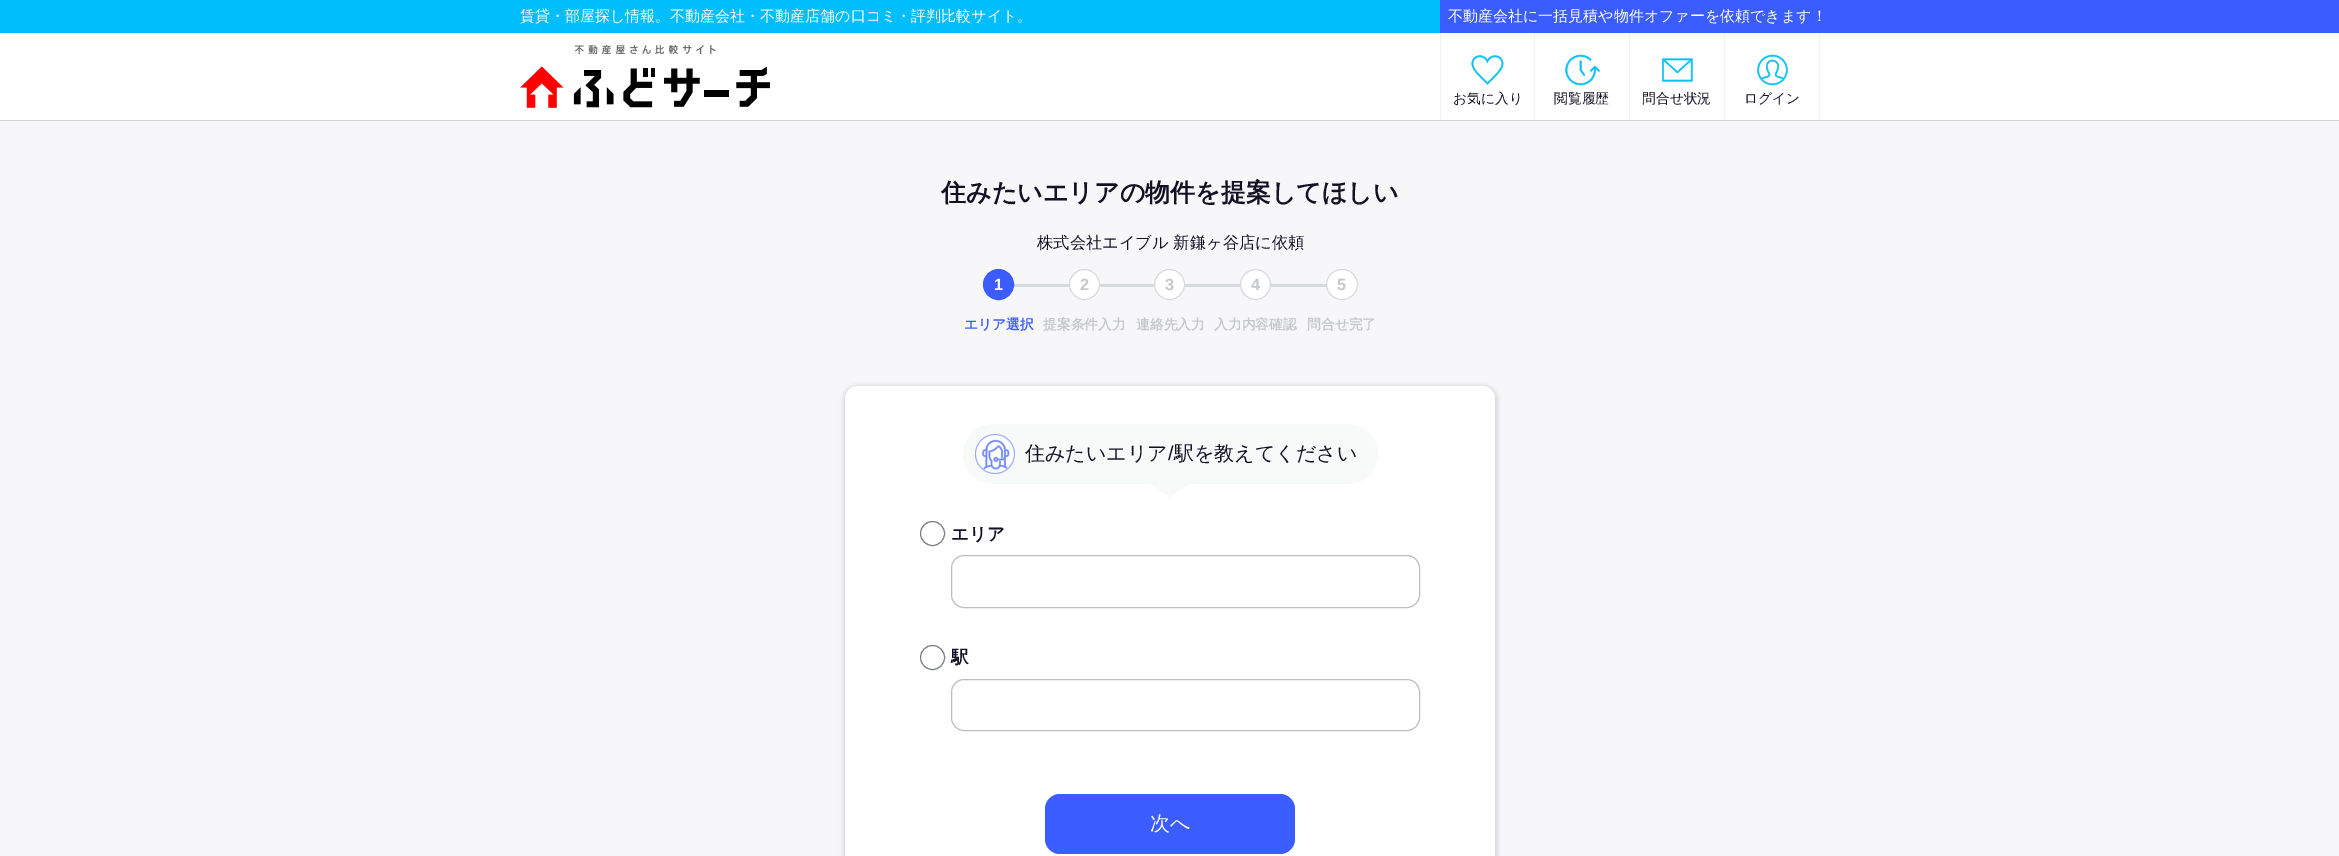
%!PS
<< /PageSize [2339 856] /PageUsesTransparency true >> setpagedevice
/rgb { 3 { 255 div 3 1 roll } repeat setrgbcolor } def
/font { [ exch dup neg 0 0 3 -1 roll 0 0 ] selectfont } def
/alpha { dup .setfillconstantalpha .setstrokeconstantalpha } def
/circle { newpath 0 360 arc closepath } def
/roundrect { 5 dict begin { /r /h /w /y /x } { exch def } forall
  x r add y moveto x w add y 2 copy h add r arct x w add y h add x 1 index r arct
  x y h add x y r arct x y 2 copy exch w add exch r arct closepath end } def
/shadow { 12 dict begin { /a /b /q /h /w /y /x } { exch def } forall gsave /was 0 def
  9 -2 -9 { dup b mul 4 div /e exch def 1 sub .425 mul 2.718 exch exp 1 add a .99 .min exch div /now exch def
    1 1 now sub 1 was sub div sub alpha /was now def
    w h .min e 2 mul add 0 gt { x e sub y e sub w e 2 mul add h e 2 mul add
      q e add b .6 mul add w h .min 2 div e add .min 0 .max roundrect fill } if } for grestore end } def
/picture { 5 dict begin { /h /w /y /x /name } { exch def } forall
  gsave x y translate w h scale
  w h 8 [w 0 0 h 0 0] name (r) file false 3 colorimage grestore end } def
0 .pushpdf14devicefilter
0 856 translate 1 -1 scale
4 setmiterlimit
255 255 255 rgb
0 0 2339 856 rectfill
247 247 249 rgb
0 120 2339 736 rectfill
gsave
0 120 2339 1 rectclip
0 0 0 rgb
0 1 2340 120 0 0.5 0.16 shadow
grestore
0 189 252 rgb
0 0 1440 33 rectfill
59 92 255 rgb
1440 0 899 33 rectfill
(img/1.rgb) 520 45 250 63 picture
(img/2.rgb) 1471 55 33 30 picture
239 242 245 rgb
1534 33 1 87 rectfill
1440 33 1 87 rectfill
(img/3.rgb) 1565 54 35 32 picture
1629 33 1 87 rectfill
(img/4.rgb) 1662 58 31 24 picture
1724 33 1 87 rectfill
(img/5.rgb) 1757 54 31 32 picture
1819 33 1 87 rectfill
215 218 221 rgb
1013 284 57 3 rectfill
59 92 255 rgb
998.5 284.5 15 circle gsave fill grestore
stroke
215 218 221 rgb
1099 284 56 3 rectfill
255 255 255 rgb
1084.5 284.5 15 circle gsave fill grestore
215 218 221 rgb
stroke
1184 284 57 3 rectfill
255 255 255 rgb
1169.5 284.5 15 circle gsave fill grestore
215 218 221 rgb
stroke
1270 284 57 3 rectfill
255 255 255 rgb
1255.5 284.5 15 circle gsave fill grestore
215 218 221 rgb
stroke
255 255 255 rgb
1326.5 269.5 31 30 15 roundrect gsave fill grestore
215 218 221 rgb
stroke
216 215 219 rgb
843 385 655 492 15 2 1 shadow
255 255 255 rgb
845 386 650 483 13 roundrect fill
248 250 250 rgb
963 424 415 60 30 roundrect fill
(img/6.rgb) 975 434 40 40 picture
1151 484 moveto 1189 484 lineto 1170 497.5 lineto closepath fill
122 126 131 rgb
932.5 533.5 12 circle stroke
190 190 190 rgb
951.5 555.5 468 52 12.5 roundrect stroke
122 126 131 rgb
932.5 657.5 12 circle stroke
190 190 190 rgb
951.5 679.5 468 51 12.5 roundrect stroke
59 92 255 rgb
1045 794 250 60 15 roundrect fill
/WenQuanYiZenHei-Medium 15 font
255 255 255 rgb
520 21 moveto (賃貸・部屋探し情報。不動産会社・不動産店舗の口コミ・評判比較サイト。) show
1448 21 moveto (不動産会社に一括見積や物件オファーを依頼できます！) show
/WenQuanYiZenHei-Medium 13.75 font
20 17 37 rgb
[
  [(お気に入り) 1453 103]
  [(閲覧履歴) 1554 103]
  [(問合せ状況) 1642 103]
  [(ログイン) 1744 103]
] { aload pop moveto show } forall
/WenQuanYiZenHei-Bold 25 font
941 201 moveto (住みたいエリアの物件を提案してほしい) show
/WenQuanYiZenHei-Medium 16.25 font
1037 248 moveto (株式会社エイブル 新鎌ヶ谷店に依頼) show
/LiberationSans-Bold 16.25 font
255 255 255 rgb
994 290 moveto (1) show
/WenQuanYiZenHei-Bold 13.75 font
59 92 255 rgb
964 329 moveto (エリア選択) show
/LiberationSans-Bold 16.25 font
197 200 203 rgb
1080 290 moveto (2) show
/WenQuanYiZenHei-Bold 13.75 font
1043 329 moveto (提案条件入力) show
/LiberationSans-Bold 16.25 font
1165 290 moveto (3) show
/WenQuanYiZenHei-Bold 13.75 font
1136 329 moveto (連絡先入力) show
/LiberationSans-Bold 16.25 font
1251 290 moveto (4) show
/WenQuanYiZenHei-Bold 13.75 font
1214 329 moveto (入力内容確認) show
/LiberationSans-Bold 16.25 font
1337 290 moveto (5) show
/WenQuanYiZenHei-Bold 13.75 font
1307 329 moveto (問合せ完了) show
/WenQuanYiZenHei-Medium 20 font
20 17 37 rgb
1025 460 moveto (住みたいエリア) show
/LiberationSans-Regular 20 font
1168 460 moveto (/) show
/WenQuanYiZenHei-Medium 20 font
1174 460 moveto (駅を教えてください) show
/WenQuanYiZenHei-Bold 17.5 font
951 540 moveto (エリア) show
951 663 moveto (駅) show
/WenQuanYiZenHei-Medium 20 font
255 255 255 rgb
1150 830 moveto (次へ) show
.poppdf14devicefilter showpage
